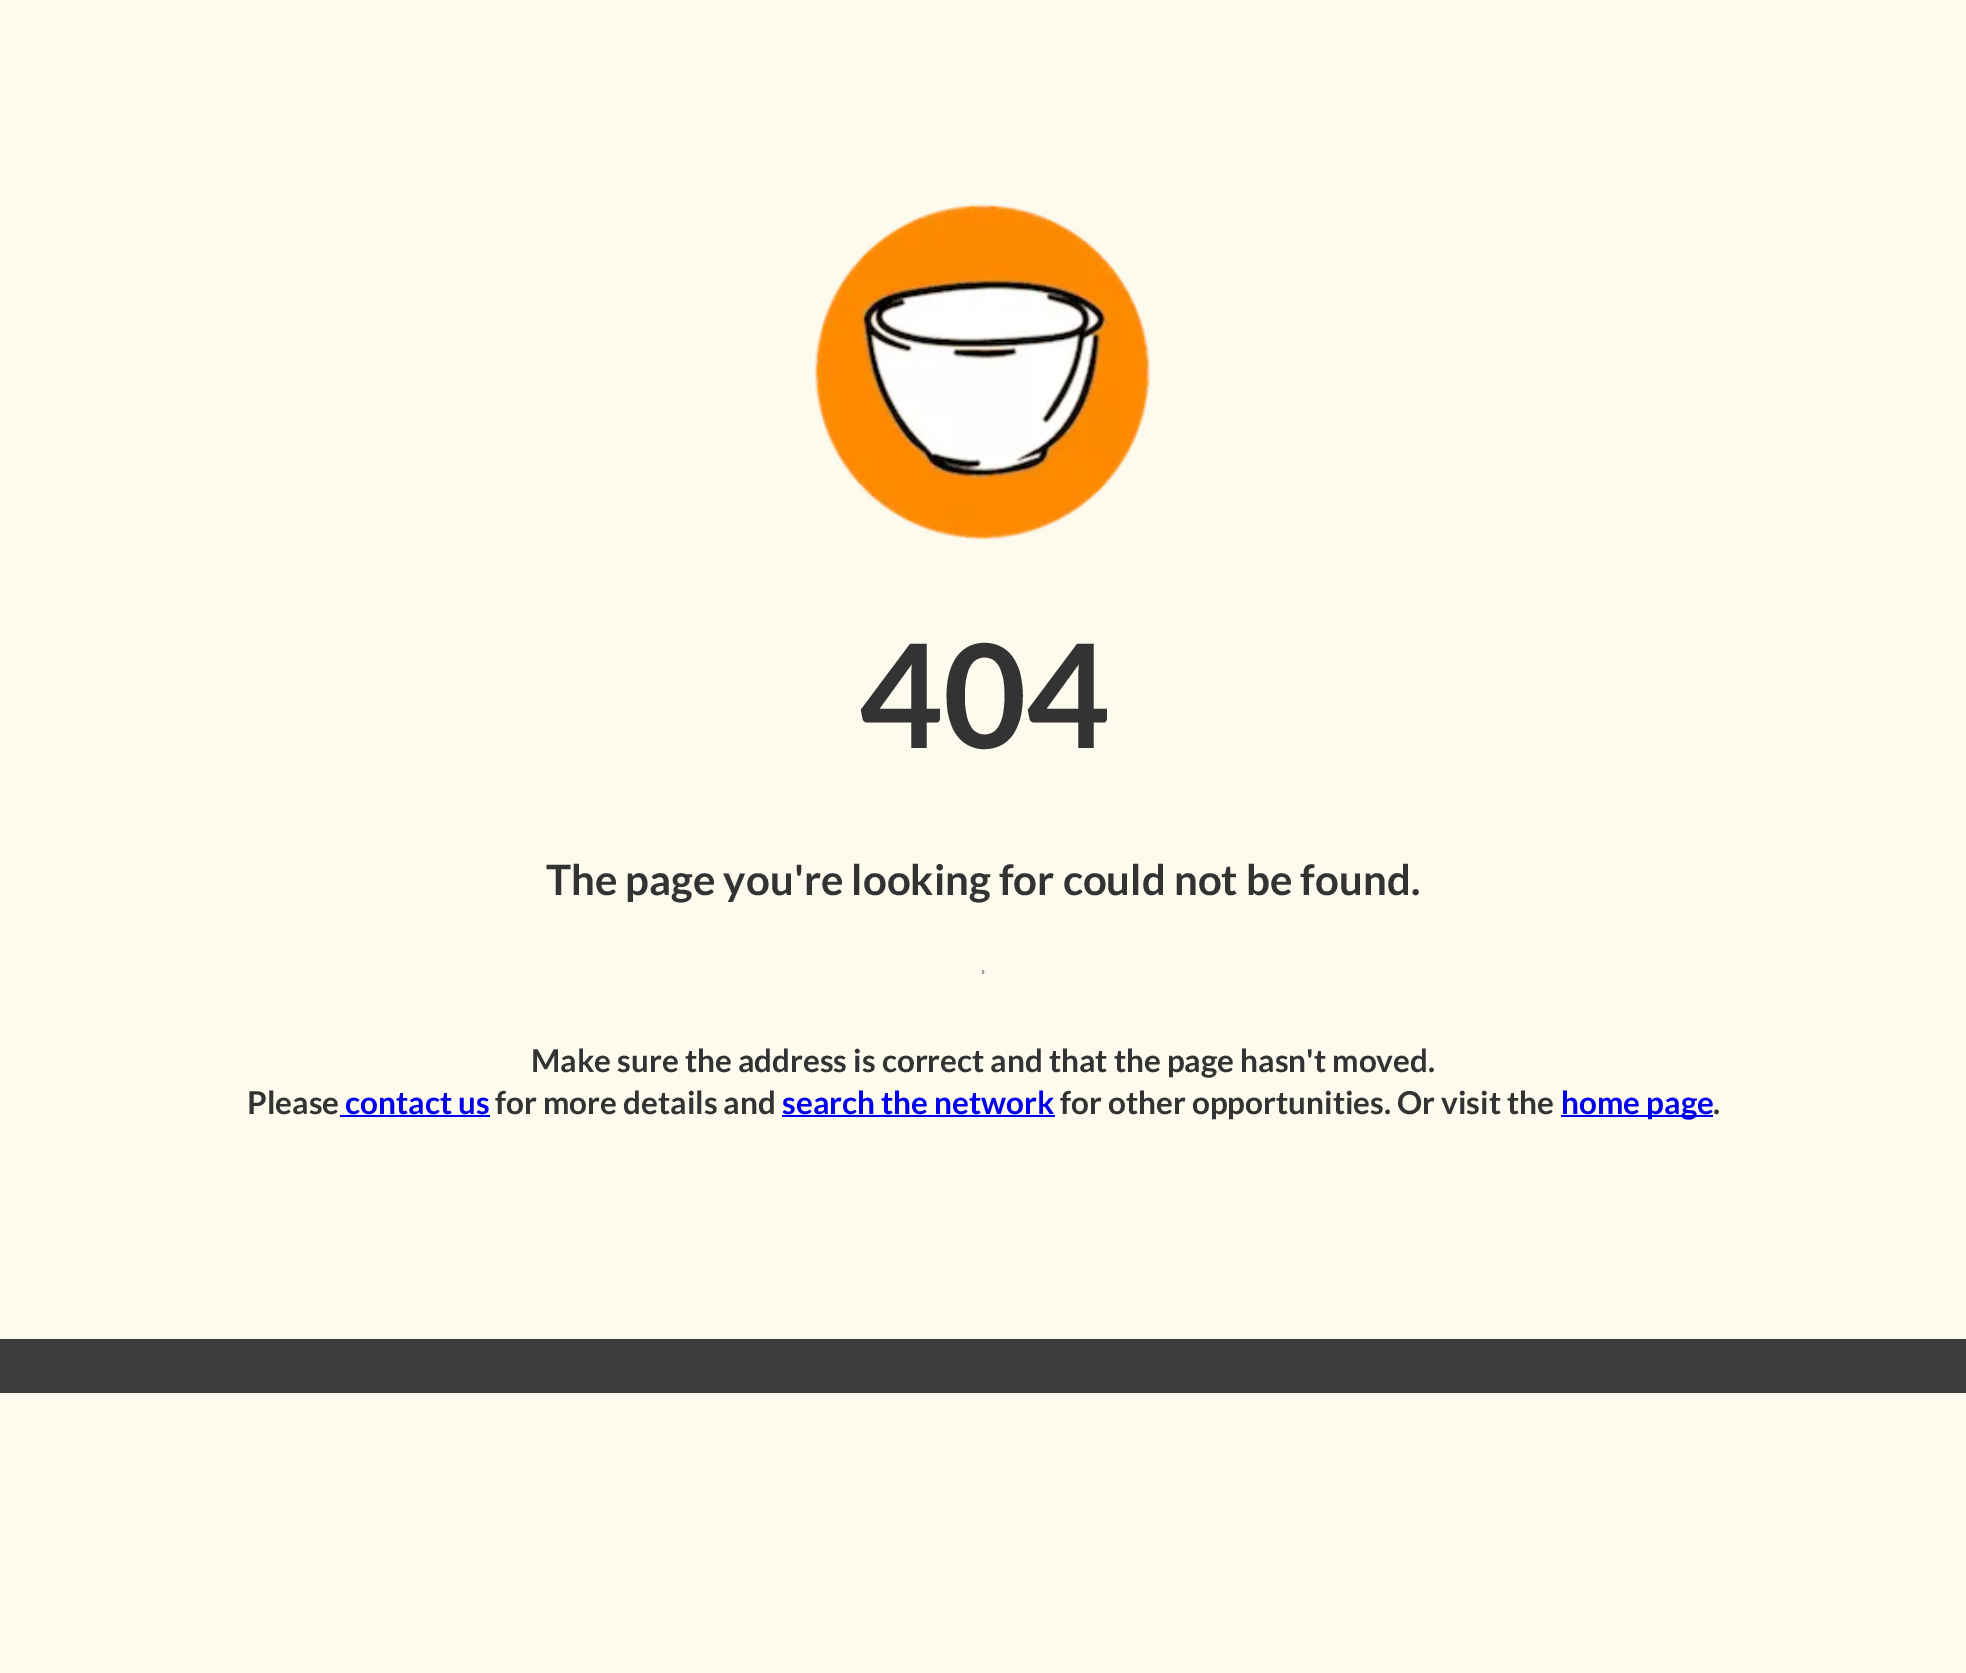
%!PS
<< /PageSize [1966 1673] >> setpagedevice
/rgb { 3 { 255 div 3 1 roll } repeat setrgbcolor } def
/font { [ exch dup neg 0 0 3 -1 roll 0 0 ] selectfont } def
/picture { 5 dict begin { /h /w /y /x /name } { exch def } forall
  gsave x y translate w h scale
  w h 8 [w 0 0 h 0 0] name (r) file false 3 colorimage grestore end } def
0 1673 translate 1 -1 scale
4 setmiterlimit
253 251 238 rgb
0 0 1966 1673 rectfill
(img/1.rgb) 814 204 337 336 picture
[
  [984 970 2 4 238 238 238]
  [982 971 4 2 238 238 238]
  [982 970 2 4 159 159 159]
  [340 1115 150 2 0 0 238]
  [782 1115 273 2 0 0 238]
  [1561 1115 152 2 0 0 238]
  [0 1339 1966 54 60 60 60]
] { aload pop rgb rectfill } forall
/Lato-Bold 144 font
51 51 51 rgb
859 748 moveto (404) show
/Lato-Bold 42 font
546 895 moveto (The page you're looking for could not be found.) show
/Lato-Bold 31.5 font
531 1072 moveto (Make sure the address is correct and that the page hasn't moved.) show
247 1114 moveto (Please) show
0 0 238 rgb
345 1114 moveto (contact us) show
51 51 51 rgb
495 1114 moveto (for more details and) show
0 0 238 rgb
782 1114 moveto (search the network) show
51 51 51 rgb
1060 1114 moveto (for other opportunities. Or visit the) show
0 0 238 rgb
1561 1114 moveto (home page) show
51 51 51 rgb
1713 1114 moveto (.) show
showpage
